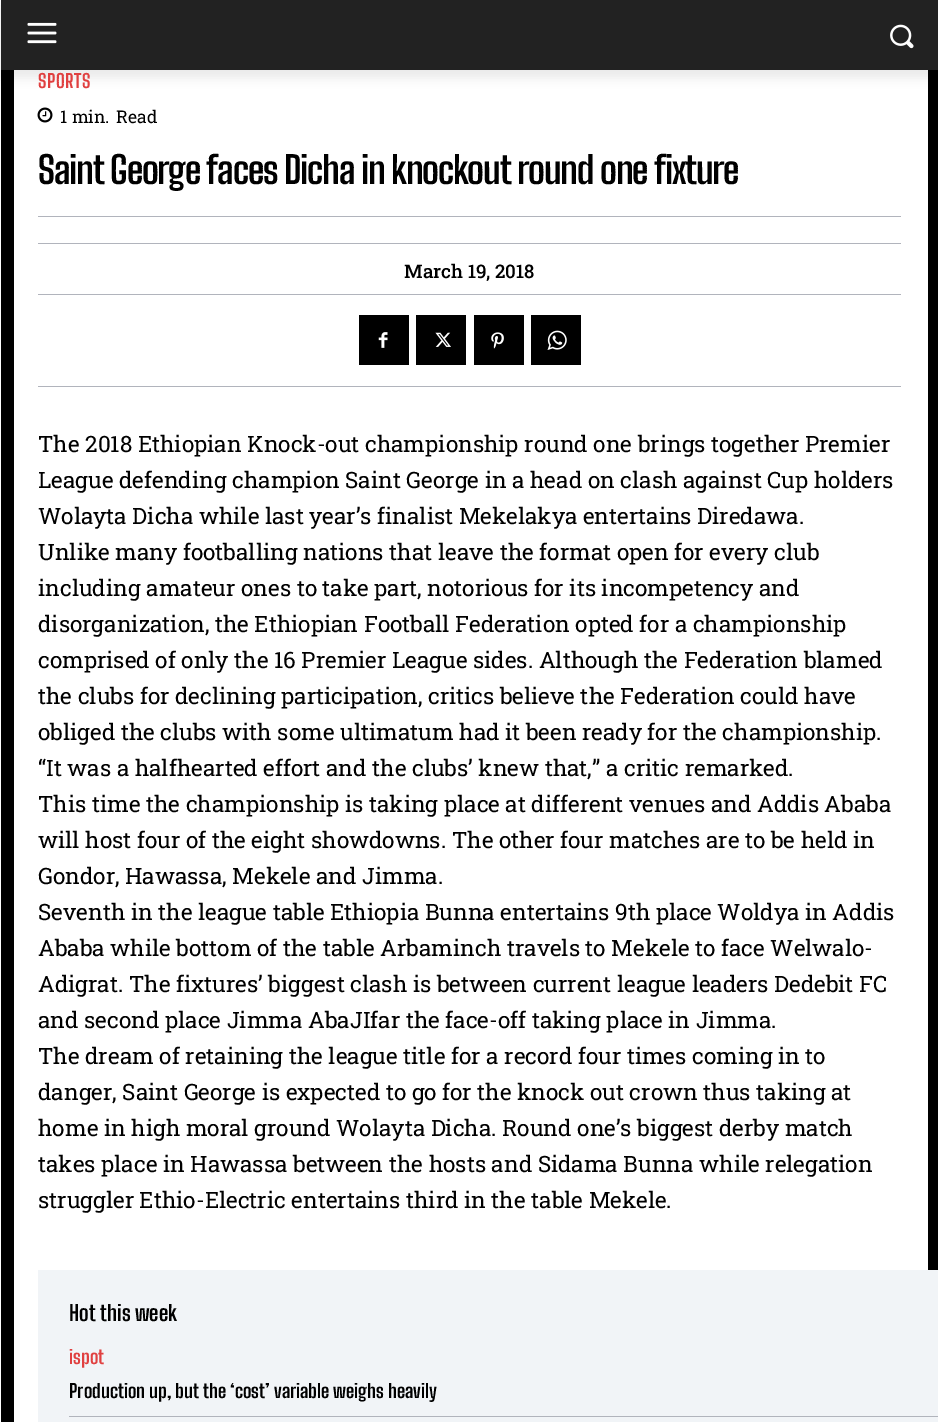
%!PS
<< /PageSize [938 1422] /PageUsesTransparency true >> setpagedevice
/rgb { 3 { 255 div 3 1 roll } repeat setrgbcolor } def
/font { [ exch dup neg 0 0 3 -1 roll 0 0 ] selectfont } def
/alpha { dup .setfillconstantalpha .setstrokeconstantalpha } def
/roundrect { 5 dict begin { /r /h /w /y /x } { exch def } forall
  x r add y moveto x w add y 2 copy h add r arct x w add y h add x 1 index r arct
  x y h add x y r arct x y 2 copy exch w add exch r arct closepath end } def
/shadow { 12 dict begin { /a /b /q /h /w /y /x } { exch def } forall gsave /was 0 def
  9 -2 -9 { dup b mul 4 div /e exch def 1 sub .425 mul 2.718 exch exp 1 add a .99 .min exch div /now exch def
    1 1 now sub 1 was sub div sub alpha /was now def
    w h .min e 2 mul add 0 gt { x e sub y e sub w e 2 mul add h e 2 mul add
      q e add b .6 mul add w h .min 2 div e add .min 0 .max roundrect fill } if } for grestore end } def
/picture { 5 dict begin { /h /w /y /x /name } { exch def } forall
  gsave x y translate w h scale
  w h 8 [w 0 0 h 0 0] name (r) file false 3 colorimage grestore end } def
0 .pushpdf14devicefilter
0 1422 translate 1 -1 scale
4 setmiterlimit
255 255 255 rgb
0 0 938 1422 rectfill
34 34 34 rgb
1 0 937 70 rectfill
(img/1.rgb) 27 22 30 22 picture
(img/2.rgb) 890 24 24 25 picture
0 0 0 rgb
1 70 937 1352 rectfill
255 255 255 rgb
14 70 914 1352 rectfill
gsave
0 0 moveto 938 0 lineto 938 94 lineto 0 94 lineto closepath 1 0 moveto 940 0 lineto 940 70 lineto 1 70 lineto closepath eoclip newpath
0 0 0 rgb
1 8 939 70 0 5 0.08 shadow
grestore
(img/3.rgb) 37 107 16 16 picture
[
  [38 216 863 1 177 180 188]
  [38 386 863 1 177 180 188]
  [38 243 863 1 177 180 188]
  [38 294 863 1 177 180 188]
  [359 315 50 50 0 0 0]
] { aload pop rgb rectfill } forall
(img/4.rgb) 378 332 10 16 picture
416 315 50 50 rectfill
(img/5.rgb) 435 332 16 15 picture
474 315 50 50 rectfill
(img/6.rgb) 491 332 13 17 picture
531 315 50 50 rectfill
(img/7.rgb) 547 330 20 20 picture
241 244 247 rgb
38 1270 900 152 rectfill
177 180 188 rgb
69 1416 869 1 rectfill
/BigShouldersText-Bold 18.75 font
224 64 64 rgb
38 88 moveto 0.5 0 (SPORTS) ashow
/RobotoSlab-Regular 17.5 font
0 0 0 rgb
60 123 moveto (1 min.) show
116 123 moveto (Read) show
/BigShouldersText-Bold 37.5 font
38 184 moveto -1.25 0 (Saint George faces Dicha in knockout round one fixture) ashow
/RobotoSlab-Medium 18.75 font
404 278 moveto (March 19, 2018) show
/RobotoSlab-Regular 22.5 font
[
  [(The 2018 Ethiopian Knock-out championship round one brings together Premier) 38 452]
  [(League defending champion Saint George in a head on clash against Cup holders) 38 488]
  [(Wolayta Dicha while last year’s finalist Mekelakya entertains Diredawa.) 38 524]
  [(Unlike many footballing nations that leave the format open for every club) 38 560]
  [(including amateur ones to take part, notorious for its incompetency and) 38 596]
  [(disorganization, the Ethiopian Football Federation opted for a championship) 38 632]
  [(comprised of only the 16 Premier League sides. Although the Federation blamed) 38 668]
  [(the clubs for declining participation, critics believe the Federation could have) 38 704]
  [(obliged the clubs with some ultimatum had it been ready for the championship.) 38 740]
  [(“It was a halfhearted effort and the clubs’ knew that,” a critic remarked.) 38 776]
  [(This time the championship is taking place at different venues and Addis Ababa) 38 812]
  [(will host four of the eight showdowns. The other four matches are to be held in) 38 848]
  [(Gondor, Hawassa, Mekele and Jimma.) 38 884]
  [(Seventh in the league table Ethiopia Bunna entertains 9th place Woldya in Addis) 38 920]
  [(Ababa while bottom of the table Arbaminch travels to Mekele to face Welwalo-) 38 956]
  [(Adigrat. The fixtures’ biggest clash is between current league leaders Dedebit FC) 38 992]
  [(and second place Jimma AbaJIfar the face-off taking place in Jimma.) 38 1028]
  [(The dream of retaining the league title for a record four times coming in to) 38 1064]
  [(danger, Saint George is expected to go for the knock out crown thus taking at) 38 1100]
  [(home in high moral ground Wolayta Dicha. Round one’s biggest derby match) 38 1136]
  [(takes place in Hawassa between the hosts and Sidama Bunna while relegation) 38 1172]
  [(struggler Ethio-Electric entertains third in the table Mekele.) 38 1208]
] { aload pop moveto show } forall
/BigShouldersText-Bold 21.25 font
69 1321 moveto (Hot this week) show
/BigShouldersText-Bold 18.75 font
224 64 64 rgb
69 1364 moveto (ispot) show
0 0 0 rgb
69 1398 moveto (Production up, but the ‘cost’ variable weighs heavily) show
.poppdf14devicefilter showpage
